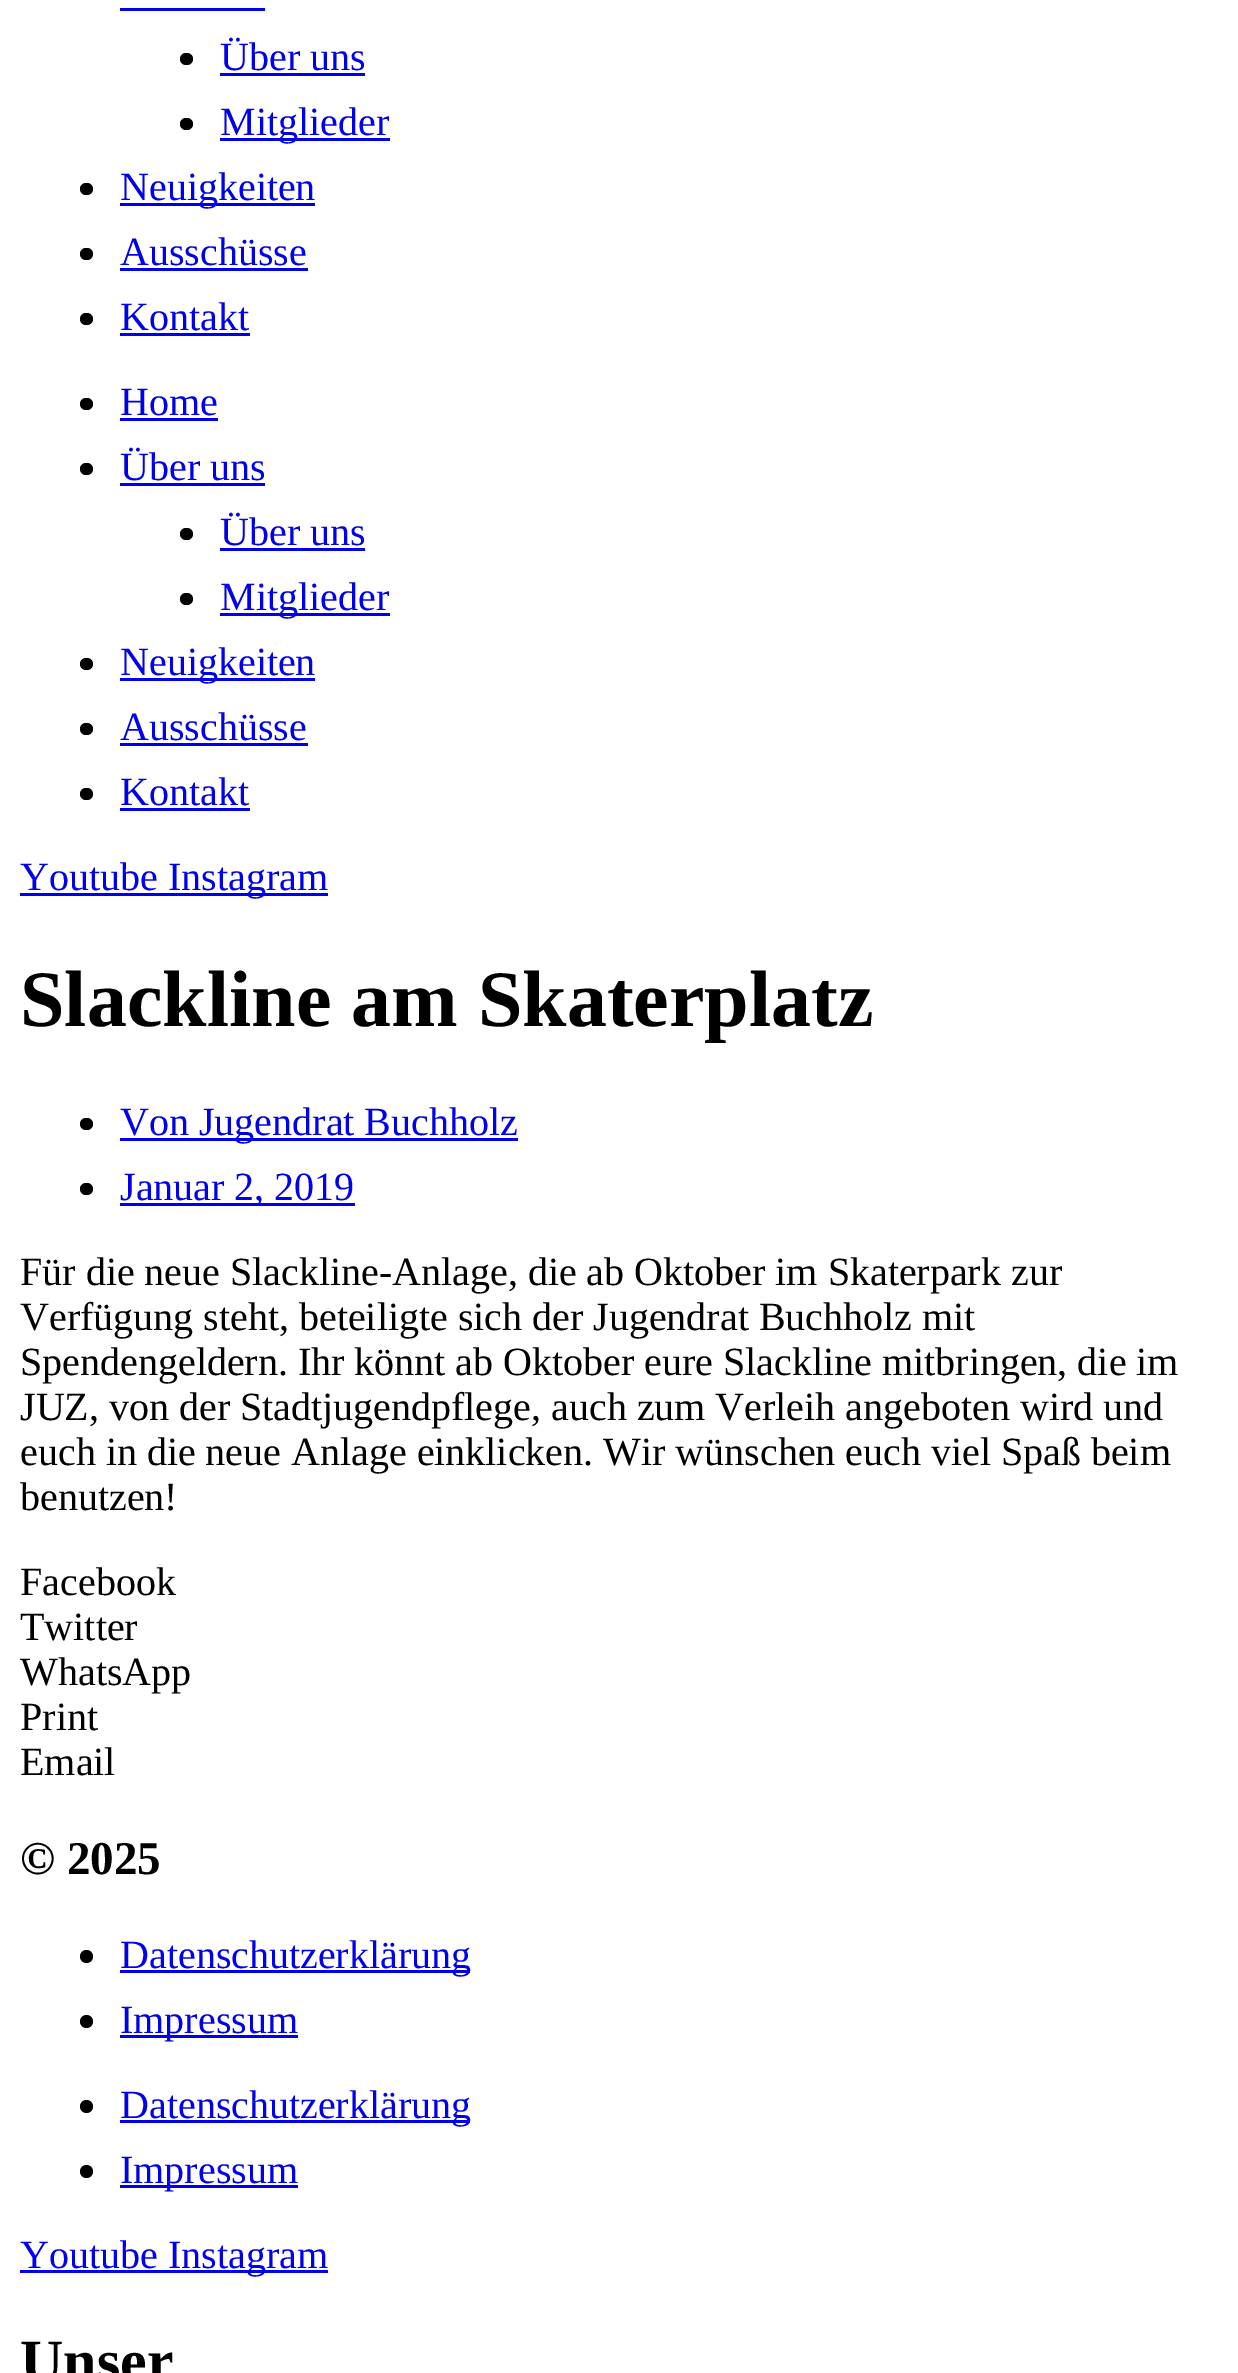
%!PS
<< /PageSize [1238 2373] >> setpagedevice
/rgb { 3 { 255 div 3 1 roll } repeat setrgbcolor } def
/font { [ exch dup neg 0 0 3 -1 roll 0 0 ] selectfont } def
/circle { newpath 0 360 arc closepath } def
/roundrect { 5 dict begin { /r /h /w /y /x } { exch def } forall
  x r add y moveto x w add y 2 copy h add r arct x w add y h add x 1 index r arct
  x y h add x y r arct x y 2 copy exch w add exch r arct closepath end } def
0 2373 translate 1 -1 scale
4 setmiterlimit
255 255 255 rgb
0 0 1238 2373 rectfill
0 0 238 rgb
120 8 145 3 rectfill
0 0 0 rgb
180 53 13 12 6 roundrect fill
0 0 238 rgb
220 73 145 3 rectfill
0 0 0 rgb
180 118 13 12 6 roundrect fill
0 0 238 rgb
220 138 170 3 rectfill
0 0 0 rgb
80 183 13 12 6 roundrect fill
0 0 238 rgb
120 203 195 3 rectfill
0 0 0 rgb
80 248 13 12 6 roundrect fill
0 0 238 rgb
120 268 188 3 rectfill
0 0 0 rgb
80 313 13 12 6 roundrect fill
0 0 238 rgb
120 333 130 3 rectfill
0 0 0 rgb
80 398 13 12 6 roundrect fill
0 0 238 rgb
120 418 98 3 rectfill
0 0 0 rgb
80 463 13 12 6 roundrect fill
0 0 238 rgb
120 483 145 3 rectfill
0 0 0 rgb
180 528 13 12 6 roundrect fill
0 0 238 rgb
220 548 145 3 rectfill
0 0 0 rgb
180 593 13 12 6 roundrect fill
0 0 238 rgb
220 613 170 3 rectfill
0 0 0 rgb
80 658 13 12 6 roundrect fill
0 0 238 rgb
120 678 195 3 rectfill
0 0 0 rgb
80 723 13 12 6 roundrect fill
0 0 238 rgb
120 743 188 3 rectfill
0 0 0 rgb
80 788 13 12 6 roundrect fill
0 0 238 rgb
120 808 130 3 rectfill
20 893 308 3 rectfill
0 0 0 rgb
80 1118 13 12 6 roundrect fill
0 0 238 rgb
120 1138 398 3 rectfill
0 0 0 rgb
80 1183 13 12 6 roundrect fill
0 0 238 rgb
120 1203 235 3 rectfill
0 0 0 rgb
86.5 1956.5 6.5 circle fill
0 0 238 rgb
120 1970 350 3 rectfill
0 0 0 rgb
86.5 2021.5 6.5 circle fill
0 0 238 rgb
120 2035 178 3 rectfill
0 0 0 rgb
86.5 2106.5 6.5 circle fill
0 0 238 rgb
120 2120 350 3 rectfill
0 0 0 rgb
86.5 2171.5 6.5 circle fill
0 0 238 rgb
120 2185 178 3 rectfill
20 2270 308 3 rectfill
/LiberationSerif-Regular 40 font
[
  [(Über uns) 220 70]
  [(Mitglieder) 220 135]
  [(Neuigkeiten) 120 200]
  [(Ausschüsse) 120 265]
  [(Kontakt) 120 330]
  [(Home) 120 415]
  [(Über uns) 120 480]
  [(Über uns) 220 545]
  [(Mitglieder) 220 610]
  [(Neuigkeiten) 120 675]
  [(Ausschüsse) 120 740]
  [(Kontakt) 120 805]
  [(Youtube Instagram) 20 890]
] { aload pop moveto show } forall
/LiberationSerif-Bold 80 font
0 0 0 rgb
20 1026 moveto (Slackline am Skaterplatz) show
/LiberationSerif-Regular 40 font
0 0 238 rgb
120 1135 moveto (Von Jugendrat Buchholz) show
120 1200 moveto (Januar 2, 2019) show
0 0 0 rgb
[
  [(Für die neue Slackline-Anlage, die ab Oktober im Skaterpark zur) 20 1285]
  [(Verfügung steht, beteiligte sich der Jugendrat Buchholz mit) 20 1330]
  [(Spendengeldern. Ihr könnt ab Oktober eure Slackline mitbringen, die im) 20 1375]
  [(JUZ, von der Stadtjugendpflege, auch zum Verleih angeboten wird und) 20 1420]
  [(euch in die neue Anlage einklicken. Wir wünschen euch viel Spaß beim) 20 1465]
  [(benutzen!) 20 1510]
  [(Facebook) 20 1595]
  [(Twitter) 20 1640]
  [(WhatsApp) 20 1685]
  [(Print) 20 1730]
  [(Email) 20 1775]
] { aload pop moveto show } forall
/LiberationSerif-Bold 47 font
20 1874 moveto (© 2025) show
/LiberationSerif-Regular 40 font
0 0 238 rgb
[
  [(Datenschutzerklärung) 120 1968]
  [(Impressum) 120 2033]
  [(Datenschutzerklärung) 120 2118]
  [(Impressum) 120 2183]
  [(Youtube Instagram) 20 2268]
] { aload pop moveto show } forall
/LiberationSerif-Bold 60 font
0 0 0 rgb
20 2381 moveto (Unser) show
showpage
